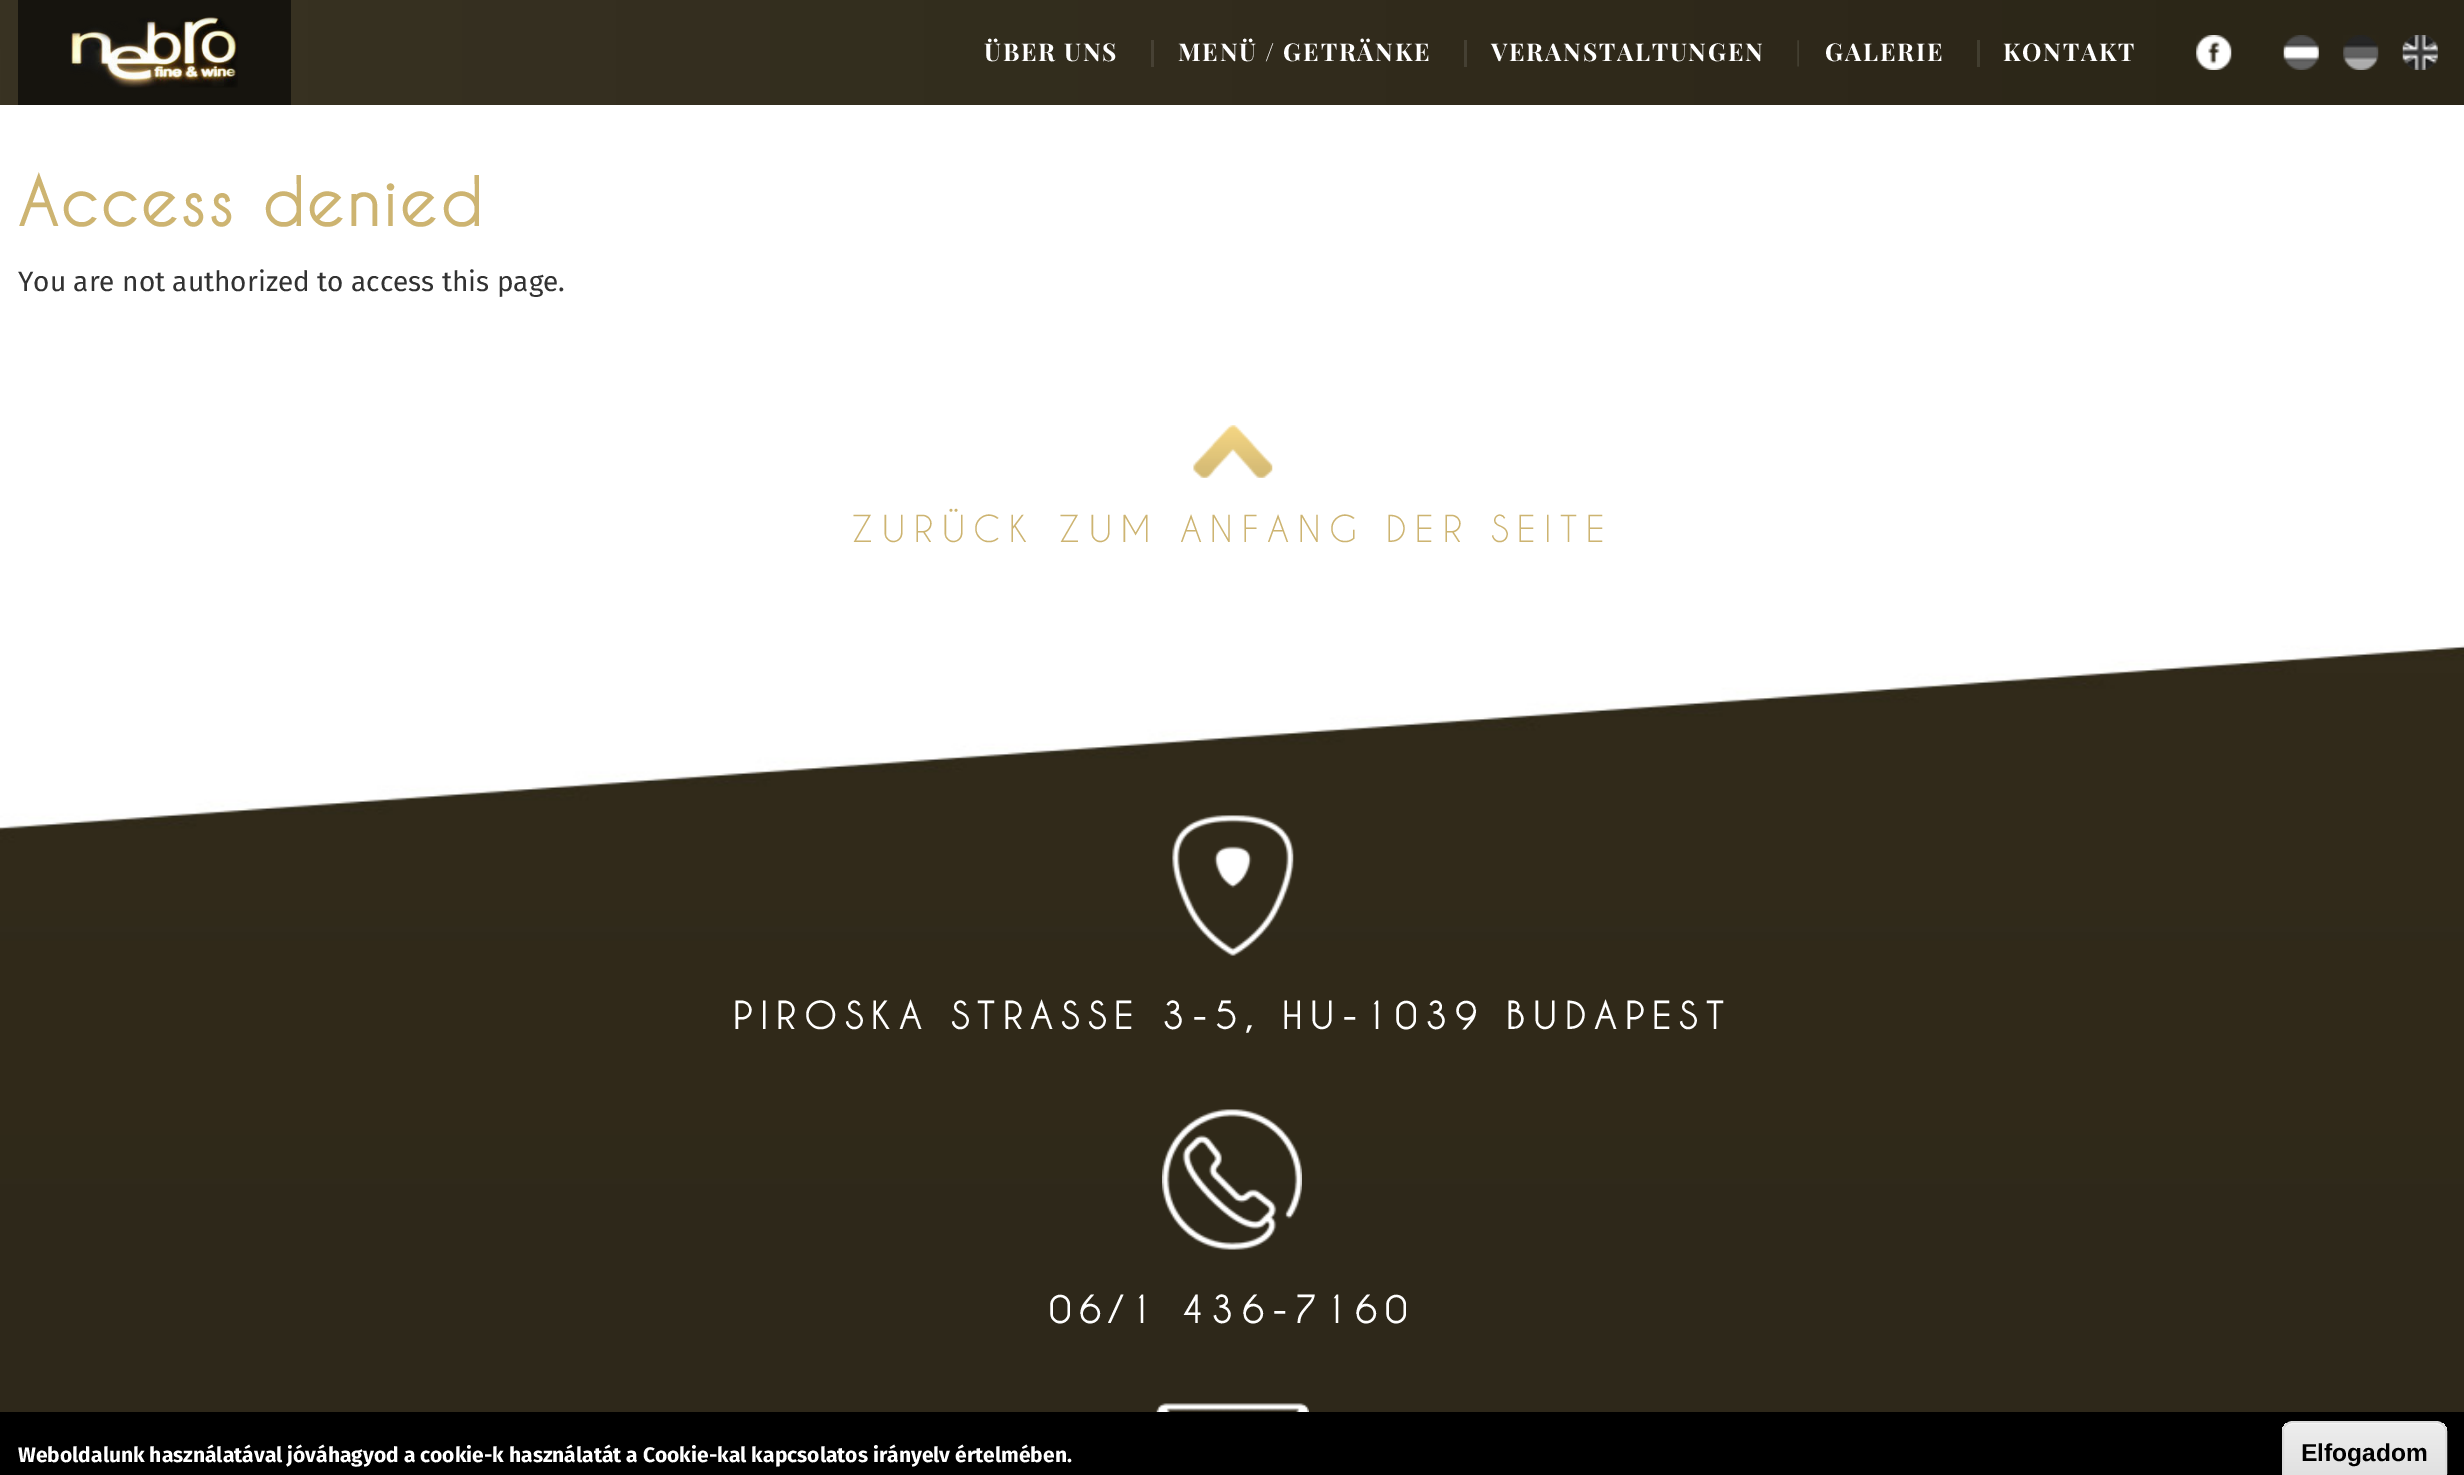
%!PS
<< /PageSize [2464 1475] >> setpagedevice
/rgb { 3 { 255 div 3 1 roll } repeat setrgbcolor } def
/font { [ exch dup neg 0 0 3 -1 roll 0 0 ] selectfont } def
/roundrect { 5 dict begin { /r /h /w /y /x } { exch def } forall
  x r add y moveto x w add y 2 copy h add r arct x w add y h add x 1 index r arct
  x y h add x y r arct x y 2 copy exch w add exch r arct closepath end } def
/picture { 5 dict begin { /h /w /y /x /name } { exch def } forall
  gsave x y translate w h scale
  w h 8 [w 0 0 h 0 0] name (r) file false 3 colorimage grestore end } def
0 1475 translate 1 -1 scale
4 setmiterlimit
255 255 255 rgb
0 0 2464 1475 rectfill
gsave 0 0 moveto 2464 0 lineto 2464 105 lineto 0 105 lineto closepath clip newpath
<< /ShadingType 2 /ColorSpace /DeviceRGB /Coords [0 53 2464 52] /Extend [true true] /Function << /FunctionType 2 /Domain [0 1] /C0 [0.224 0.2 0.137] /C1 [0.165 0.145 0.09] /N 1 >> >> shfill grestore
22 20 14 rgb
18 0 273 105 rectfill
(img/1.rgb) 70 17 168 71 picture
71 65 52 rgb
1151 40 3 27 rectfill
69 64 51 rgb
1464 40 3 27 rectfill
(img/2.rgb) 1797 40 2 27 picture
66 62 48 rgb
1977 40 3 27 rectfill
(img/3.rgb) 2196 35 36 35 picture
(img/4.rgb) 2283 35 36 35 picture
(img/5.rgb) 2343 35 36 35 picture
(img/6.rgb) 2402 35 36 35 picture
(img/7.rgb) 0 645 2464 767 picture
(img/8.rgb) 1193 425 80 53 picture
(img/9.rgb) 1172 815 122 141 picture
(img/10.rgb) 1162 1109 140 141 picture
(img/11.rgb) 1156 1403 153 9 picture
0 0 0 rgb
0 1412 2464 63 rectfill
gsave
2282 1421 165 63 11 roundrect clip newpath
gsave 2282 1423 moveto 2447 1423 lineto 2447 1475 lineto 2282 1475 lineto closepath clip newpath
<< /ShadingType 2 /ColorSpace /DeviceRGB /Coords [2364 1423 2364 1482] /Extend [true true] /Function << /FunctionType 3 /Domain [0 1] /Functions [<< /FunctionType 2 /Domain [0 1] /C0 [0.929 0.929 0.929] /C1 [0.929 0.929 0.929] /N 1 >> << /FunctionType 2 /Domain [0 1] /C0 [0.929 0.929 0.929] /C1 [0.875 0.875 0.875] /N 1 >>] /Bounds [0.05] /Encode [0 1 0 1] >> >> shfill grestore
grestore
255 255 255 rgb
2292 1424 moveto 2436 1424 lineto 2441 1424 2445 1428 2445 1433 curveto 2445 1432 lineto 2445 1427 2441 1423 2436 1423 curveto 2293 1423 lineto 2288 1423 2284 1427 2284 1432 curveto 2284 1433 lineto 2284 1428 2288 1424 2292 1424 curveto closepath fill
220 220 220 rgb
2 setlinewidth
2283 1422 163 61 10 roundrect stroke
/PlayfairDisplay-Bold 24.5 font
255 255 255 rgb
984 61 moveto 1.75 0 (ÜBER UNS) ashow
1178 61 moveto 1.75 0 (MENÜ / GETRÄNKE) ashow
1491 61 moveto 1.75 0 (VERANSTALTUNGEN) ashow
1825 61 moveto 1.75 0 (GALERIE) ashow
2003 61 moveto 1.75 0 (KONTAKT) ashow
/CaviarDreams-Bold 63 font
205 180 113 rgb
18 226 moveto 3.5 0 (Access denied) ashow
/FiraSans-Regular 28 font
50 50 50 rgb
18 291 moveto (You are not authorized to access this page.) show
/CaviarDreams-Regular 35 font
205 180 113 rgb
851 542 moveto 8.75 0 (ZURÜCK ZUM ANFANG DER SEITE) ashow
/CaviarDreams-Bold 35 font
255 255 255 rgb
733 1029 moveto 8.75 0 (PIROSKA STRASSE 3-5, HU-1039 BUDAPEST) ashow
1049 1323 moveto 8.75 0 (06/1 436-7160) ashow
/FiraSans-Bold 21 font
18 1462 moveto (Weboldalunk használatával jóváhagyod a cookie-k használatát a Cookie-kal kapcsolatos irányelv értelmében.) show
/LiberationSans-Bold 24.5 font
0 0 0 rgb
2301 1461 moveto (Elfogadom) show
showpage
